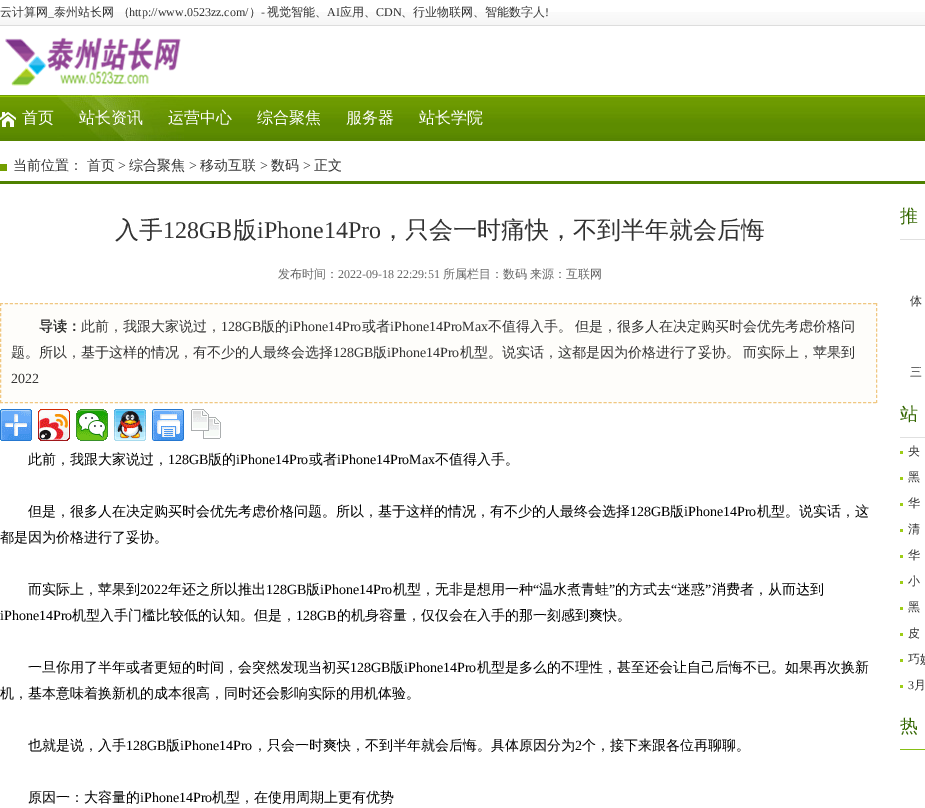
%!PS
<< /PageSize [925 808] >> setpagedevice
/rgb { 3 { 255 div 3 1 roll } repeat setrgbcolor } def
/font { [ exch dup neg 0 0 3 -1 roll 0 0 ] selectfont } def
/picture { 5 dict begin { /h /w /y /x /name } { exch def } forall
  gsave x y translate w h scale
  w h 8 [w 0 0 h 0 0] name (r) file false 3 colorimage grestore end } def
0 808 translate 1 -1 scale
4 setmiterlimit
255 255 255 rgb
0 0 925 808 rectfill
(img/1.rgb) 0 12 925 14 picture
(img/2.rgb) 5 37 176 49 picture
(img/3.rgb) 0 95 925 46 picture
(img/4.rgb) 57 95 127 46 picture
(img/5.rgb) 0 112 16 15 picture
[
  [0 164 7 7 114 158 0]
  [0 181 925 3 78 129 0]
  [0 303 877 100 254 253 250]
] { aload pop rgb rectfill } forall
240 199 129 rgb
[3 1.99] 0 setdash
0 303.5 moveto 877 303.5 lineto stroke
[3 2.11] 0 setdash
876.5 303 moveto 876.5 403 lineto stroke
[3 1.99] 0 setdash
0 402.5 moveto 877 402.5 lineto stroke
[3 2.11] 0 setdash
0.5 303 moveto 0.5 403 lineto stroke
(img/6.rgb) 0 409 32 32 picture
(img/7.rgb) 38 409 32 32 picture
(img/8.rgb) 76 409 32 32 picture
(img/9.rgb) 114 409 32 32 picture
(img/10.rgb) 152 409 32 32 picture
(img/11.rgb) 191 409 30 30 picture
[
  [900 239 25 1 224 224 224]
  [900 437 25 1 224 224 224]
  [900 451 3 3 157 205 23]
  [900 477 3 3 157 205 23]
  [900 503 3 3 157 205 23]
  [900 529 3 3 157 205 23]
  [900 555 3 3 157 205 23]
  [900 581 3 3 157 205 23]
  [900 607 3 3 157 205 23]
  [900 633 3 3 157 205 23]
  [900 659 3 3 157 205 23]
  [900 685 3 3 157 205 23]
  [900 749 25 1 134 191 21]
] { aload pop rgb rectfill } forall
/WenQuanYiZenHei-Medium 12 font
51 51 51 rgb
0 16 moveto (云计算网) show
/LiberationSerif-Regular 12 font
129 16 moveto (http://www.0523zz.com/) show
/WenQuanYiZenHei-Medium 12 font
249 16 moveto (）) show
/LiberationSerif-Regular 12 font
261 16 moveto (-) show
/WenQuanYiZenHei-Medium 12 font
267 16 moveto (视觉智能、) show
/LiberationSerif-Regular 12 font
327 16 moveto (AI) show
/WenQuanYiZenHei-Medium 12 font
340 16 moveto (应用、) show
/LiberationSerif-Regular 12 font
376 16 moveto (CDN) show
/WenQuanYiZenHei-Medium 12 font
401 16 moveto (、行业物联网、智能数字人) show
/LiberationSerif-Regular 12 font
545 16 moveto (!) show
48 16 moveto (_) show
/WenQuanYiZenHei-Medium 12 font
54 16 moveto (泰州站长网 （) show
/WenQuanYiZenHei-Medium 16 font
255 255 255 rgb
[
  [(首页) 22 123]
  [(站长资讯) 79 123]
  [(运营中心) 168 123]
  [(综合聚焦) 257 123]
  [(服务器) 346 123]
  [(站长学院) 419 123]
] { aload pop moveto show } forall
/WenQuanYiZenHei-Medium 14 font
51 51 51 rgb
13 170 moveto (当前位置：) show
87 170 moveto (首页) show
/LiberationSerif-Regular 14 font
118 170 moveto (>) show
/WenQuanYiZenHei-Medium 14 font
129 170 moveto (综合聚焦) show
/LiberationSerif-Regular 14 font
189 170 moveto (>) show
/WenQuanYiZenHei-Medium 14 font
200 170 moveto (移动互联) show
/LiberationSerif-Regular 14 font
260 170 moveto (>) show
/WenQuanYiZenHei-Medium 14 font
271 170 moveto (数码) show
/LiberationSerif-Regular 14 font
303 170 moveto (>) show
/WenQuanYiZenHei-Medium 14 font
314 170 moveto (正文) show
/WenQuanYiZenHei-Medium 24 font
115 238 moveto (入手) show
/LiberationSerif-Regular 24 font
163 238 moveto (128GB) show
/WenQuanYiZenHei-Medium 24 font
233 238 moveto (版) show
/LiberationSerif-Regular 24 font
257 238 moveto (iPhone14Pro) show
/WenQuanYiZenHei-Medium 24 font
381 238 moveto (，只会一时痛快，不到半年就会后悔) show
/WenQuanYiZenHei-Medium 12 font
102 102 102 rgb
278 278 moveto (发布时间：) show
/LiberationSerif-Regular 12 font
338 278 moveto (2022-09-18 22:29:51) show
/WenQuanYiZenHei-Medium 12 font
443 278 moveto (所属栏目：数码) show
530 278 moveto (来源：互联网) show
/WenQuanYiZenHei-Bold 14 font
51 51 51 rgb
39 331 moveto (导读：) show
/WenQuanYiZenHei-Medium 14 font
81 331 moveto (此前，我跟大家说过，) show
/LiberationSerif-Regular 14 font
221 331 moveto (128GB) show
/WenQuanYiZenHei-Medium 14 font
261 331 moveto (版的) show
/LiberationSerif-Regular 14 font
289 331 moveto (iPhone14Pro) show
/WenQuanYiZenHei-Medium 14 font
362 331 moveto (或者) show
/LiberationSerif-Regular 14 font
390 331 moveto (iPhone14ProMax) show
/WenQuanYiZenHei-Medium 14 font
488 331 moveto -1 0 32 (不值得入手。 但是，很多人在决定购买时会优先考虑价格问) widthshow
11 357 moveto (题。所以，基于这样的情况，有不少的人最终会选择) show
/LiberationSerif-Regular 14 font
333 357 moveto (128GB) show
/WenQuanYiZenHei-Medium 14 font
373 357 moveto (版) show
/LiberationSerif-Regular 14 font
387 357 moveto (iPhone14Pro) show
/WenQuanYiZenHei-Medium 14 font
460 357 moveto -1 0 32 (机型。说实话，这都是因为价格进行了妥协。 而实际上，苹果到) widthshow
/LiberationSerif-Regular 14 font
11 383 moveto (2022) show
/WenQuanYiZenHei-Medium 14 font
0 0 0 rgb
28 464 moveto (此前，我跟大家说过，) show
/LiberationSerif-Regular 14 font
168 464 moveto (128GB) show
/WenQuanYiZenHei-Medium 14 font
208 464 moveto (版的) show
/LiberationSerif-Regular 14 font
236 464 moveto (iPhone14Pro) show
/WenQuanYiZenHei-Medium 14 font
309 464 moveto (或者) show
/LiberationSerif-Regular 14 font
337 464 moveto (iPhone14ProMax) show
/WenQuanYiZenHei-Medium 14 font
435 464 moveto (不值得入手。) show
28 516 moveto (但是，很多人在决定购买时会优先考虑价格问题。所以，基于这样的情况，有不少的人最终会选择) show
/LiberationSerif-Regular 14 font
630 516 moveto (128GB) show
/WenQuanYiZenHei-Medium 14 font
670 516 moveto (版) show
/LiberationSerif-Regular 14 font
684 516 moveto (iPhone14Pro) show
/WenQuanYiZenHei-Medium 14 font
[
  [(机型。说实话，这) 757 516]
  [(都是因为价格进行了妥协。) 0 542]
  [(而实际上，苹果到) 28 594]
] { aload pop moveto show } forall
/LiberationSerif-Regular 14 font
140 594 moveto (2022) show
/WenQuanYiZenHei-Medium 14 font
168 594 moveto (年还之所以推出) show
/LiberationSerif-Regular 14 font
266 594 moveto (128GB) show
/WenQuanYiZenHei-Medium 14 font
306 594 moveto (版) show
/LiberationSerif-Regular 14 font
320 594 moveto (iPhone14Pro) show
/WenQuanYiZenHei-Medium 14 font
393 594 moveto (机型，无非是想用一种) show
/LiberationSerif-Regular 14 font
533 594 moveto (“) show
/WenQuanYiZenHei-Medium 14 font
539 594 moveto (温水煮青蛙) show
/LiberationSerif-Regular 14 font
609 594 moveto (”) show
/WenQuanYiZenHei-Medium 14 font
615 594 moveto (的方式去) show
/LiberationSerif-Regular 14 font
671 594 moveto (“) show
/WenQuanYiZenHei-Medium 14 font
677 594 moveto (迷惑) show
/LiberationSerif-Regular 14 font
705 594 moveto (”) show
/WenQuanYiZenHei-Medium 14 font
712 594 moveto (消费者，从而达到) show
/LiberationSerif-Regular 14 font
0 620 moveto (iPhone14Pro) show
/WenQuanYiZenHei-Medium 14 font
72 620 moveto (机型入手门槛比较低的认知。但是，) show
/LiberationSerif-Regular 14 font
296 620 moveto (128GB) show
/WenQuanYiZenHei-Medium 14 font
337 620 moveto (的机身容量，仅仅会在入手的那一刻感到爽快。) show
28 672 moveto (一旦你用了半年或者更短的时间，会突然发现当初买) show
/LiberationSerif-Regular 14 font
350 672 moveto (128GB) show
/WenQuanYiZenHei-Medium 14 font
390 672 moveto (版) show
/LiberationSerif-Regular 14 font
404 672 moveto (iPhone14Pro) show
/WenQuanYiZenHei-Medium 14 font
[
  [(机型是多么的不理性，甚至还会让自己后悔不已。如果再次换新) 477 672]
  [(机，基本意味着换新机的成本很高，同时还会影响实际的用机体验。) 0 698]
  [(也就是说，入手) 28 750]
] { aload pop moveto show } forall
/LiberationSerif-Regular 14 font
126 750 moveto (128GB) show
/WenQuanYiZenHei-Medium 14 font
166 750 moveto (版) show
/LiberationSerif-Regular 14 font
180 750 moveto (iPhone14Pro) show
/WenQuanYiZenHei-Medium 14 font
253 750 moveto (，只会一时爽快，不到半年就会后悔。具体原因分为) show
/LiberationSerif-Regular 14 font
575 750 moveto (2) show
/WenQuanYiZenHei-Medium 14 font
582 750 moveto (个，接下来跟各位再聊聊。) show
28 802 moveto (原因一：大容量的) show
/LiberationSerif-Regular 14 font
140 802 moveto (iPhone14Pro) show
/WenQuanYiZenHei-Medium 14 font
212 802 moveto (机型，在使用周期上更有优势) show
/WenQuanYiZenHei-Medium 18 font
51 102 0 rgb
900 222 moveto (推) show
/WenQuanYiZenHei-Medium 12 font
51 51 51 rgb
910 305 moveto -1 0 32 (体) widthshow
910 376 moveto (三) show
/WenQuanYiZenHei-Medium 18 font
51 102 0 rgb
900 420 moveto (站) show
/WenQuanYiZenHei-Medium 12 font
51 51 51 rgb
[
  [(央) 908 455]
  [(黑) 908 481]
  [(华) 908 507]
  [(清) 908 533]
  [(华) 908 559]
  [(小) 908 585]
  [(黑) 908 611]
] { aload pop moveto show } forall
908 637 moveto -1 0 32 (皮) widthshow
908 663 moveto (巧妙) show
/LiberationSerif-Regular 12 font
908 689 moveto (3) show
/WenQuanYiZenHei-Medium 12 font
914 689 moveto (月) show
/WenQuanYiZenHei-Medium 18 font
51 102 0 rgb
900 732 moveto (热) show
showpage
